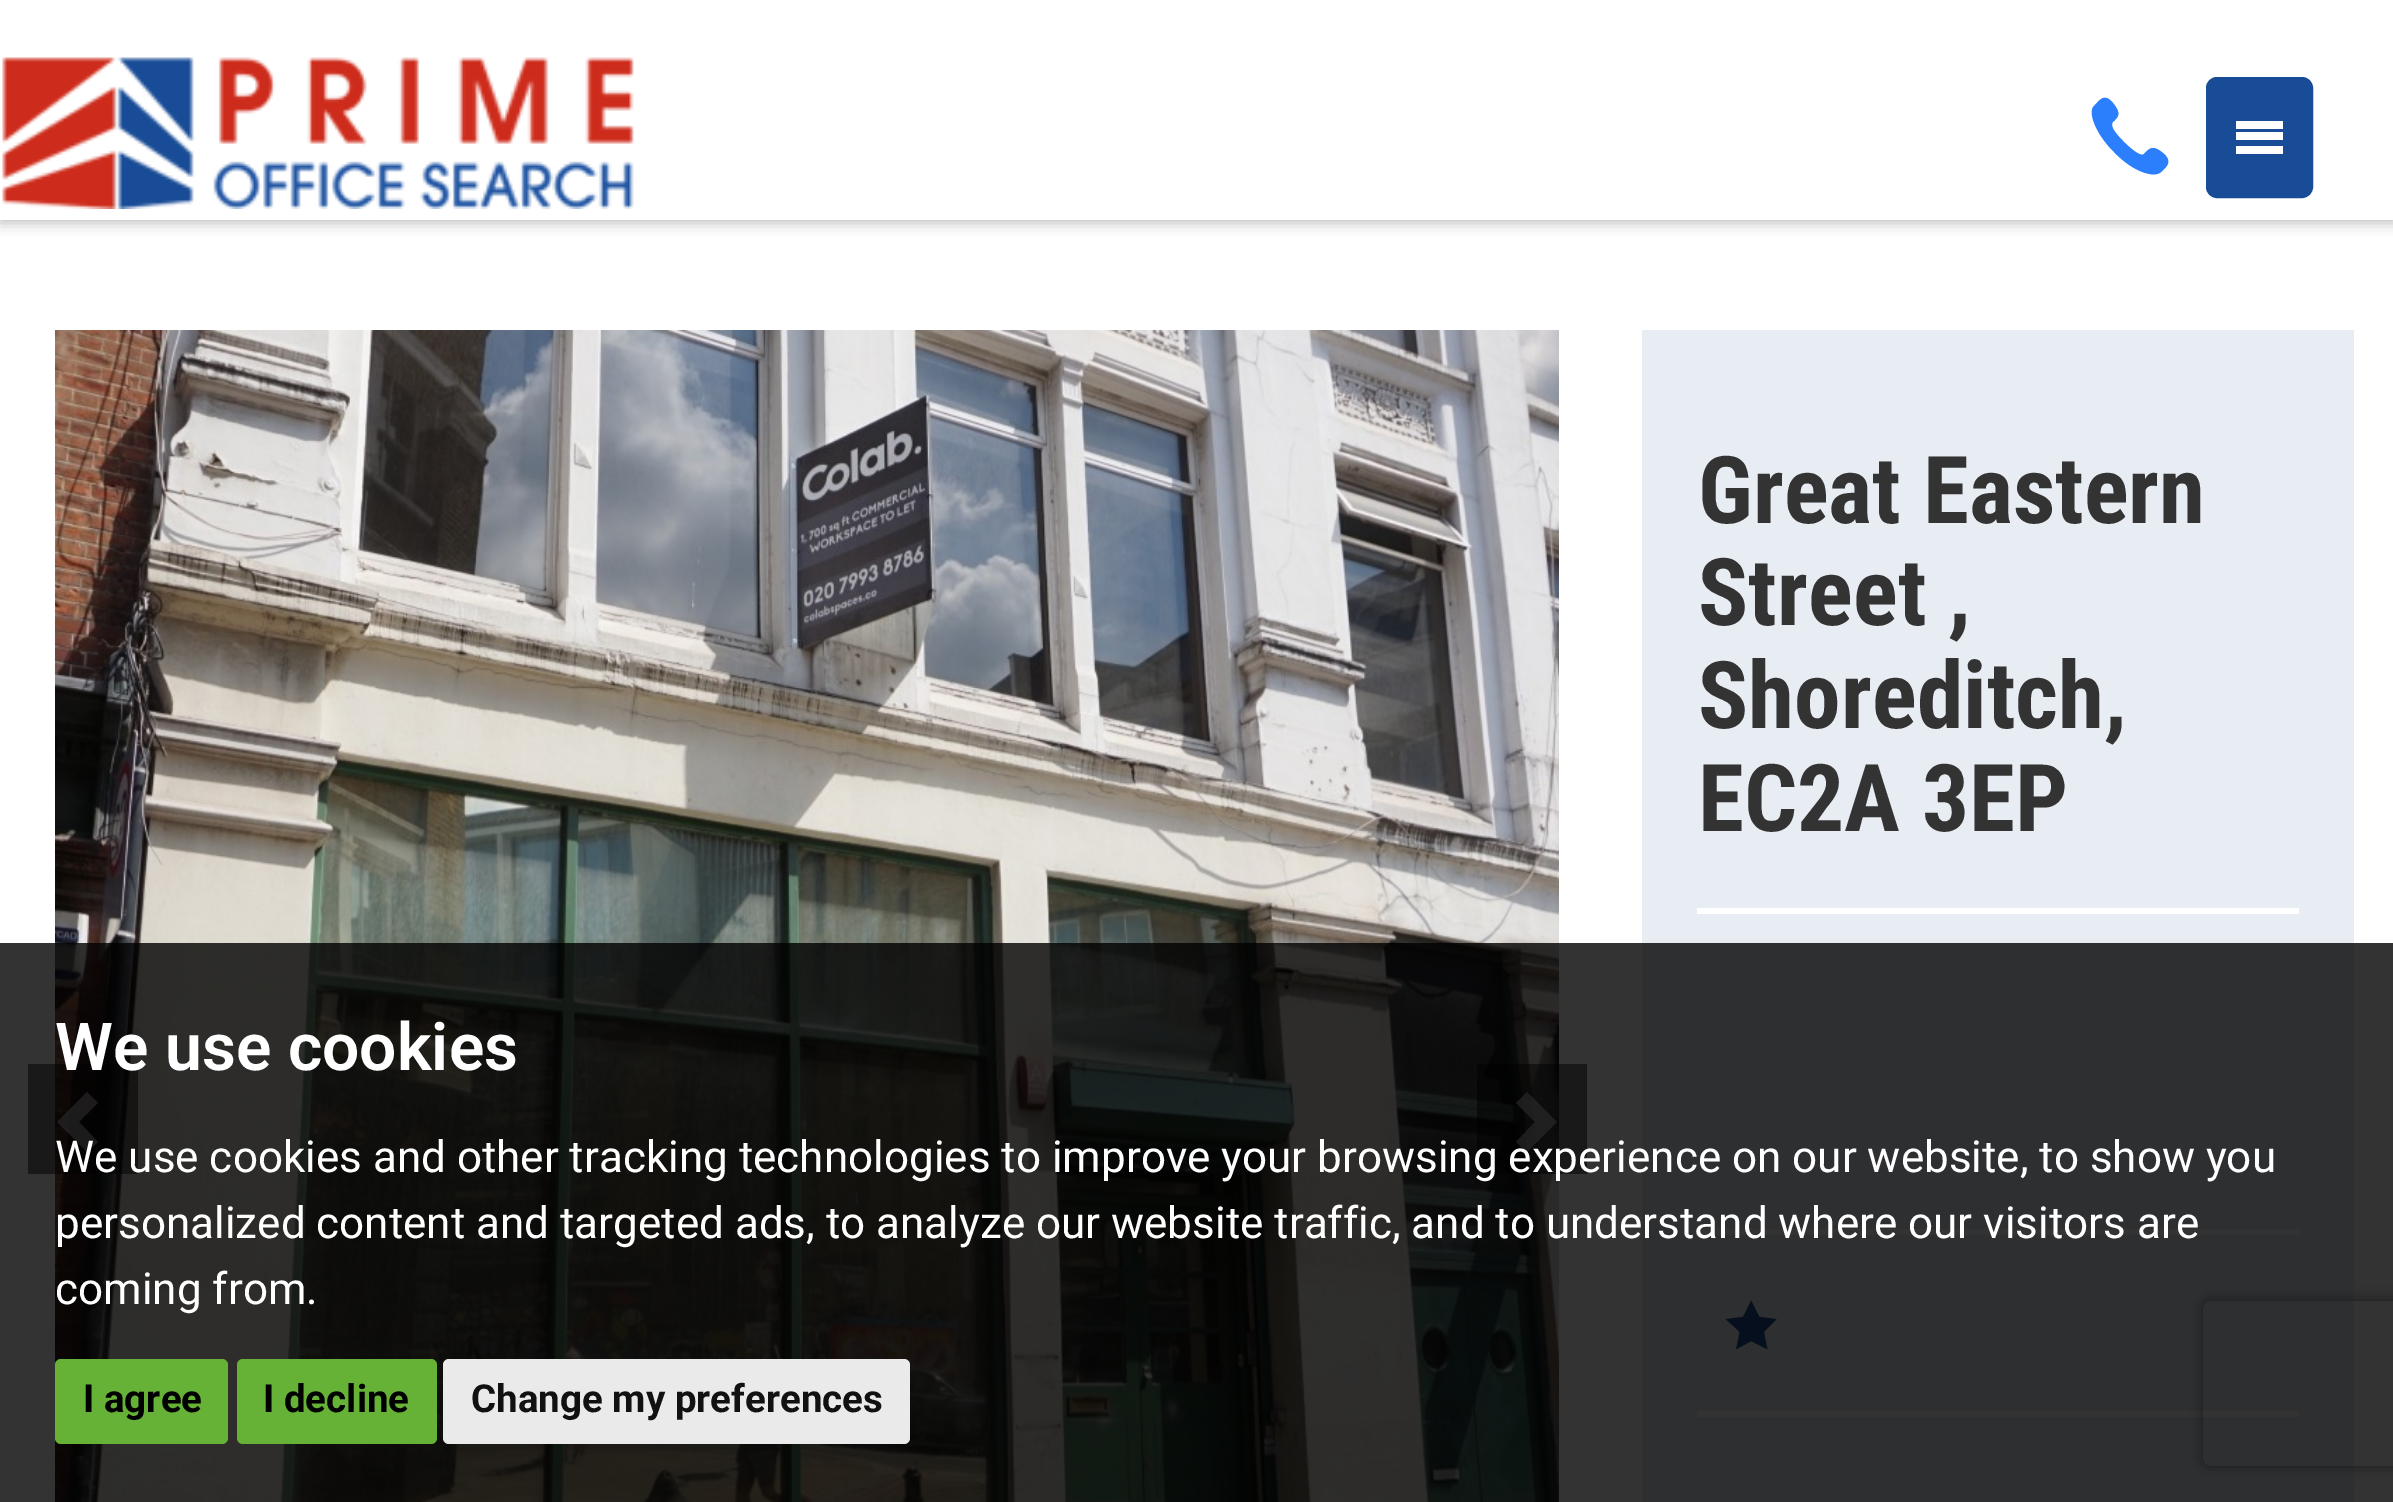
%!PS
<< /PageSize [2393 1502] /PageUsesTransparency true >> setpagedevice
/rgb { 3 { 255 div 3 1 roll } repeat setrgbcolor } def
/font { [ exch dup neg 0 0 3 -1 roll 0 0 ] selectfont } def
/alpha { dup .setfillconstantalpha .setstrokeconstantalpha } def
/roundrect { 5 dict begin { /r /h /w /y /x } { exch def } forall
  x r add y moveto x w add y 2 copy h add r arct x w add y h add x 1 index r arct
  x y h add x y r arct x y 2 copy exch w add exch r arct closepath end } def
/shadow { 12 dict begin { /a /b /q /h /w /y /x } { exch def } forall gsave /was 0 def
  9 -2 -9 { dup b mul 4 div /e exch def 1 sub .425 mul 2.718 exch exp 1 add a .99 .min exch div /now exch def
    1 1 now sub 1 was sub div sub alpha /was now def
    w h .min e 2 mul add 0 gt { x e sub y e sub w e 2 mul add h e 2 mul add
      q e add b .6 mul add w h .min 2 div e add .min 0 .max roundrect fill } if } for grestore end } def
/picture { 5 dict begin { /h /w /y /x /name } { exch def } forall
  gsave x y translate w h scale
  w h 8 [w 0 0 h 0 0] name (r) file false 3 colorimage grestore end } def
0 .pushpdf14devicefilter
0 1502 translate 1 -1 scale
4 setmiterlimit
255 255 255 rgb
0 0 2393 1502 rectfill
gsave
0 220 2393 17 rectclip
189 187 189 rgb
0 3 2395 220 0 7 1 shadow
grestore
(img/1.rgb) 2 57 632 152 picture
43 127 252 rgb
2124 142 moveto 2117 135 2109 126 2113 122 curveto 2118 117 2122 114 2113 103 curveto 2104 92 2099 101 2094 106 curveto 2088 111 2094 132 2114 152 curveto 2134 173 2155 178 2161 172 curveto 2165 168 2174 162 2163 153 curveto 2152 144 2149 149 2144 154 curveto 2141 157 2132 150 2124 142 curveto closepath fill
25 76 150 rgb
2207.5 78.5 104 118 9.5 roundrect gsave fill grestore
3 setlinewidth
stroke
[
  [2236 146 47 8 255 255 255]
  [2236 132 47 8 255 255 255]
  [2236 121 47 8 255 255 255]
] { aload pop rgb rectfill } forall
(img/2.rgb) 55 330 1504 1172 picture
0.5 alpha
0 0 0 rgb
28 1064 110 110 rectfill
255 255 255 rgb
98 1103 moveto 79 1122 lineto 98 1142 lineto 87 1152 lineto 57 1122 lineto 87 1092 lineto closepath fill
0 0 0 rgb
1477 1064 110 110 rectfill
255 255 255 rgb
1557 1122 moveto 1527 1152 lineto 1516 1142 lineto 1535 1122 lineto 1516 1103 lineto 1527 1092 lineto closepath fill
1 alpha
[
  [1642 330 712 1172 232 237 243]
  [1697 908 602 6 255 255 255]
  [1697 1229 602 6 255 255 255]
] { aload pop rgb rectfill } forall
(img/3.rgb) 1725 1300 52 50 picture
1697 1411 602 6 rectfill
gsave
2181 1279 moveto 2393 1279 lineto 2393 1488 lineto 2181 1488 lineto closepath 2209 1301 moveto 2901 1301 lineto 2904.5 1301 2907 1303.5 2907 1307 curveto 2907 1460 lineto 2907 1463.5 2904.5 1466 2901 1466 curveto 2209 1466 lineto 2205.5 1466 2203 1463.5 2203 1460 curveto 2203 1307 lineto 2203 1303.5 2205.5 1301 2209 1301 curveto closepath eoclip newpath
128 128 128 rgb
2203 1301 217 165 6 7 1 shadow
grestore
0.8 alpha
0 0 0 rgb
0 943 2393 559 rectfill
1 alpha
101 178 54 rgb
55 1359 173 85 6 roundrect fill
237 1359 200 85 6 roundrect fill
234 234 234 rgb
443 1359 467 85 6 roundrect fill
/RobotoCondensed-Bold 93.5 font
51 51 51 rgb
[
  [(Great Eastern) 1698 523]
  [(Street ,) 1698 625]
  [(Shoreditch,) 1698 728]
  [(EC2A 3EP) 1698 831]
] { aload pop moveto show } forall
/Roboto-SemiBold 66 font
255 255 255 rgb
55 1070 moveto (We use cookies) show
/Roboto-Regular 44 font
[
  [(We use cookies and other tracking technologies to improve your browsing experience on our website, to show you) 55 1172]
  [(personalized content and targeted ads, to analyze our website traffic, and to understand where our visitors are) 55 1238]
  [(coming from.) 55 1304]
] { aload pop moveto show } forall
/Roboto-Bold 38.5 font
0 0 0 rgb
83 1412 moveto (I agree) show
263 1412 moveto (I decline) show
17 17 17 rgb
471 1412 moveto (Change my preferences) show
.poppdf14devicefilter showpage
